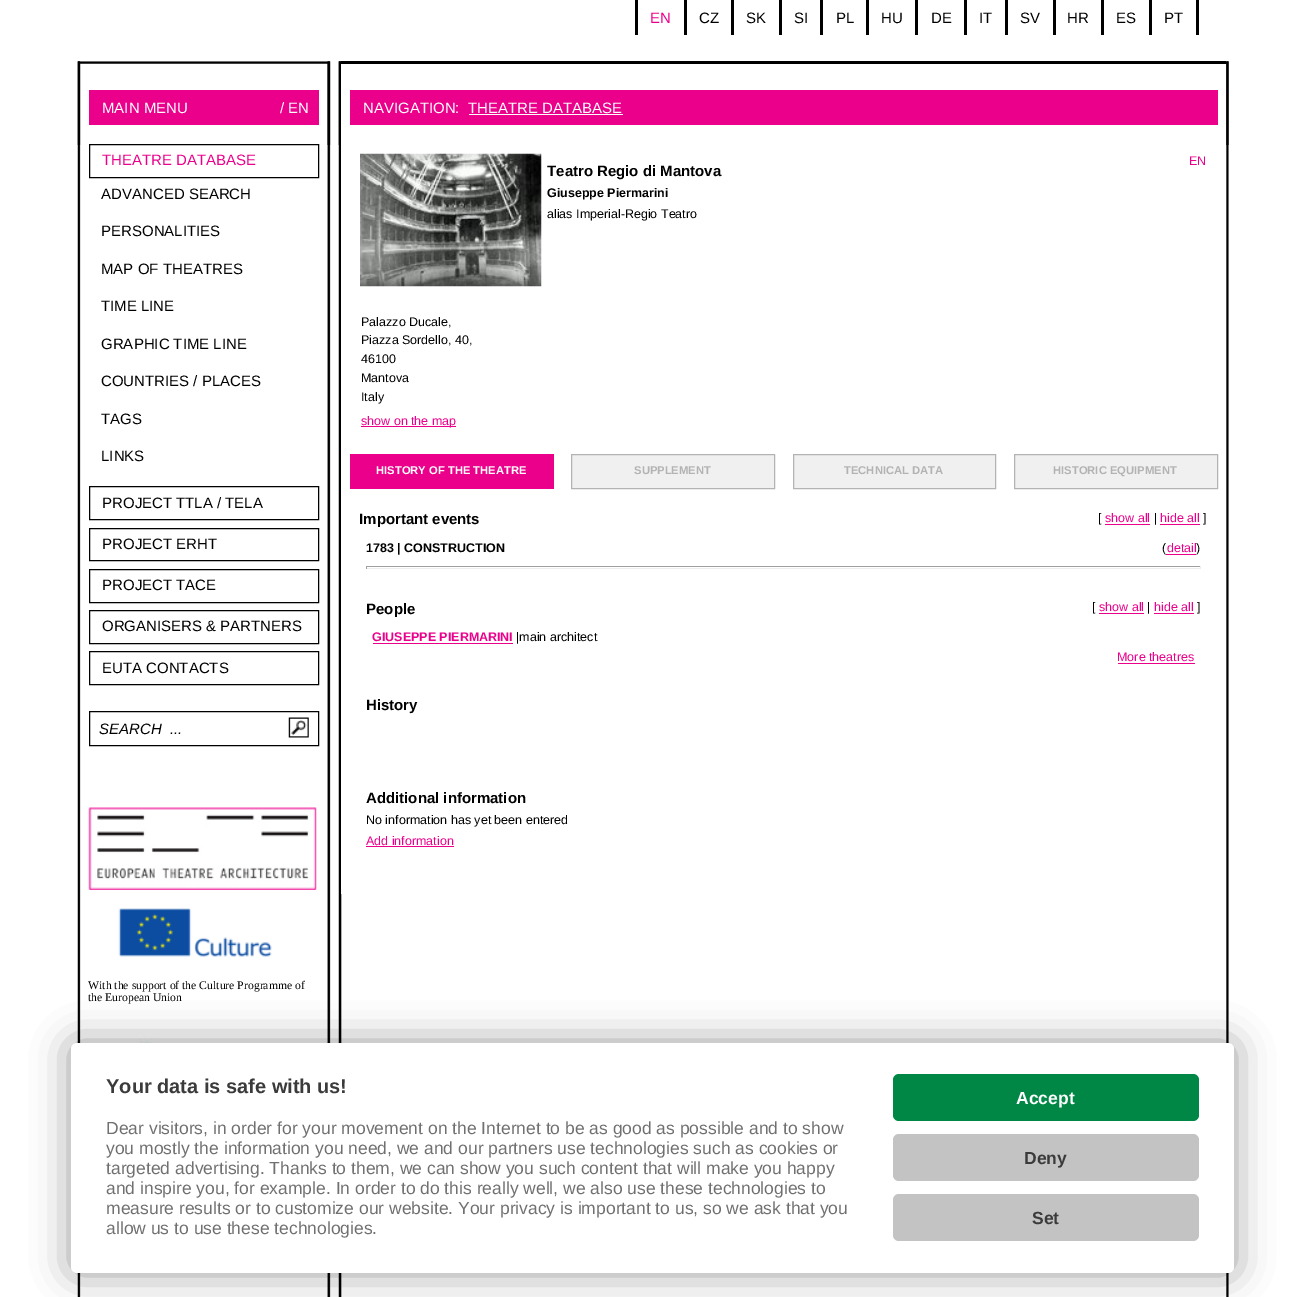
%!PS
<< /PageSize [1305 1297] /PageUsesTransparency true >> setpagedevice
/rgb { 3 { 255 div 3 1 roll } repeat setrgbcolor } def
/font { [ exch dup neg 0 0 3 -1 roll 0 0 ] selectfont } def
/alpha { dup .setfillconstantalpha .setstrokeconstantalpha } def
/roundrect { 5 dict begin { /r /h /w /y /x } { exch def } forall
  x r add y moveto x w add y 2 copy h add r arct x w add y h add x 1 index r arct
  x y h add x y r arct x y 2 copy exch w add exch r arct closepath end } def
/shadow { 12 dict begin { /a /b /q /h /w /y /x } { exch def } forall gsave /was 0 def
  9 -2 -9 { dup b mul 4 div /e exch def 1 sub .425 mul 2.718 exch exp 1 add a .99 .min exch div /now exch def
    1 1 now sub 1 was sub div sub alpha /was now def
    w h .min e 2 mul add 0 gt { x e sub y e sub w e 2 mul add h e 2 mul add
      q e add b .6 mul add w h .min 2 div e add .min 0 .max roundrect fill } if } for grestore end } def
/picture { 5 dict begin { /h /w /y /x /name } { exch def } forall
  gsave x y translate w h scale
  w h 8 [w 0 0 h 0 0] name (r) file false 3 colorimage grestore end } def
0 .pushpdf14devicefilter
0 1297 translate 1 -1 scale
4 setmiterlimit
255 255 255 rgb
0 0 1305 1297 rectfill
[
  [635 0 3 35 0 0 0]
  [684 0 3 35 0 0 0]
  [731 0 3 35 0 0 0]
  [779 0 3 35 0 0 0]
  [820 0 3 35 0 0 0]
  [866 0 3 35 0 0 0]
  [915 0 3 35 0 0 0]
  [964 0 3 35 0 0 0]
  [1005 0 3 35 0 0 0]
  [1053 0 3 35 0 0 0]
  [1101 0 3 35 0 0 0]
  [1149 0 3 35 0 0 0]
  [1196 0 3 35 0 0 0]
] { aload pop rgb rectfill } forall
(img/1.rgb) 77 61 1152 1236 picture
(img/2.rgb) 77 61 1152 84 picture
235 0 139 rgb
89 90 230 35 rectfill
0 0 0 rgb
89.5 144.5 229 33 rectstroke
89.5 486.5 229 33 rectstroke
89.5 528.5 229 32 rectstroke
89.5 569.5 229 33 rectstroke
89.5 610.5 229 33 rectstroke
89.5 651.5 229 33 rectstroke
89.5 711.5 229 34 rectstroke
(img/3.rgb) 288 717 21 21 picture
(img/4.rgb) 88 807 229 83 picture
(img/5.rgb) 118 908 154 49 picture
(img/6.rgb) 113 1036 182 7 picture
[
  [341 64 573 830 255 255 255]
  [341 61 885 3 0 0 0]
  [350 90 868 35 235 0 139]
  [469 114 154 1 255 255 255]
] { aload pop rgb rectfill } forall
(img/7.rgb) 360 153 182 134 picture
235 0 139 rgb
361 426 95 1 rectfill
350 454 204 35 rectfill
240 240 240 rgb
571.5 454.5 moveto 774.5 454.5 lineto 774.5 488.5 lineto 571.5 488.5 lineto closepath gsave fill grestore
179 179 179 rgb
stroke
240 240 240 rgb
793.5 454.5 moveto 995.5 454.5 lineto 995.5 488.5 lineto 793.5 488.5 lineto closepath gsave fill grestore
179 179 179 rgb
stroke
240 240 240 rgb
1014.5 454.5 moveto 1217.5 454.5 lineto 1217.5 488.5 lineto 1014.5 488.5 lineto closepath gsave fill grestore
179 179 179 rgb
stroke
[
  [1105 524 45 1 235 0 139]
  [1160 524 40 1 235 0 139]
  [366 566 835 1 159 159 159]
  [1200 566 1 3 238 238 238]
  [366 568 835 1 238 238 238]
  [366 566 1 3 159 159 159]
  [1099 613 45 1 235 0 139]
  [1154 613 40 1 235 0 139]
  [373 643 140 1 235 0 139]
  [1118 663 77 1 235 0 139]
  [366 846 88 1 235 0 139]
] { aload pop rgb rectfill } forall
0 0 0 rgb
71 1043 1163 230 6 19 0.4 shadow
255 255 255 rgb
71 1043 1163 230 6 roundrect fill
0 135 69 rgb
893 1074 306 47 6 roundrect fill
195 195 195 rgb
893 1134 306 47 6 roundrect fill
893 1194 306 47 6 roundrect fill
/LiberationSans-Regular 15 font
235 0 139 rgb
650 23 moveto (EN) show
0 0 0 rgb
[
  [(CZ) 699 23]
  [(SK) 746 23]
  [(SI) 794 23]
  [(PL) 836 23]
  [(HU) 881 23]
  [(DE) 931 23]
  [(IT) 979 23]
  [(SV) 1020 23]
  [(HR) 1067 23]
  [(ES) 1116 23]
  [(PT) 1164 23]
] { aload pop moveto show } forall
255 255 255 rgb
102 113 moveto (MAIN MENU) show
280 113 moveto (/ EN) show
235 0 139 rgb
102 165 moveto (THEATRE DATABASE) show
0 0 0 rgb
[
  [(ADVANCED SEARCH) 101 199]
  [(PERSONALITIES) 101 236]
  [(MAP OF THEATRES) 101 274]
  [(TIME LINE) 101 311]
  [(GRAPHIC TIME LINE) 101 349]
  [(COUNTRIES / PLACES) 101 386]
  [(TAGS) 101 424]
  [(LINKS) 101 461]
  [(PROJECT TTLA / TELA) 102 508]
  [(PROJECT ERHT) 102 549]
  [(PROJECT TACE) 102 590]
  [(ORGANISERS & PARTNERS) 102 631]
  [(EUTA CONTACTS) 102 673]
] { aload pop moveto show } forall
/LiberationSans-Italic 15 font
99 734 moveto (SEARCH  ...) show
/LiberationSerif-Regular 11.7 font
88 989 moveto (With the support of the Culture Programme of) show
88 1001 moveto (the European Union) show
/LiberationSans-Regular 15 font
255 255 255 rgb
363 113 moveto (NAVIGATION:) show
468 113 moveto (THEATRE DATABASE) show
/LiberationSans-Regular 12.5 font
235 0 139 rgb
1189 165 moveto (EN) show
/LiberationSans-Bold 15 font
0 0 0 rgb
547 176 moveto (Teatro Regio di Mantova) show
/LiberationSans-Bold 12.5 font
547 197 moveto (Giuseppe Piermarini) show
/LiberationSans-Regular 12.5 font
[
  [(alias Imperial-Regio Teatro) 547 218]
  [(Palazzo Ducale,) 361 326]
  [(Piazza Sordello, 40,) 361 344]
  [(46100) 361 363]
  [(Mantova) 361 382]
  [(Italy) 361 401]
] { aload pop moveto show } forall
235 0 139 rgb
361 425 moveto (show on the map) show
/LiberationSans-Bold 11.25 font
255 255 255 rgb
376 474 moveto (HISTORY OF THE THEATRE) show
179 179 179 rgb
[
  [(SUPPLEMENT) 634 474]
  [(TECHNICAL DATA) 844 474]
  [(HISTORIC EQUIPMENT) 1053 474]
] { aload pop moveto show } forall
/LiberationSans-Bold 15 font
0 0 0 rgb
359 524 moveto (Important events) show
/LiberationSans-Regular 12.5 font
1098 522 moveto ([) show
235 0 139 rgb
1105 522 moveto (show all) show
0 0 0 rgb
1154 522 moveto (|) show
235 0 139 rgb
1160 522 moveto (hide all) show
0 0 0 rgb
1203 522 moveto (]) show
/LiberationSans-Bold 12.5 font
366 552 moveto (1783 | CONSTRUCTION) show
/LiberationSans-Regular 12.5 font
1162 552 moveto (\() show
235 0 139 rgb
1167 552 moveto (detail) show
1166 554 30 1 rectfill
0 0 0 rgb
1196 552 moveto (\)) show
/LiberationSans-Bold 15 font
366 614 moveto (People) show
/LiberationSans-Regular 12.5 font
1092 611 moveto ([) show
235 0 139 rgb
1099 611 moveto (show all) show
0 0 0 rgb
1147 611 moveto (|) show
235 0 139 rgb
1154 611 moveto (hide all) show
0 0 0 rgb
1197 611 moveto (]) show
/LiberationSans-Bold 12.5 font
235 0 139 rgb
372 641 moveto (GIUSEPPE PIERMARINI) show
/LiberationSans-Regular 12.5 font
0 0 0 rgb
516 641 moveto (|main architect) show
235 0 139 rgb
1117 661 moveto (More theatres) show
/LiberationSans-Bold 15 font
0 0 0 rgb
366 710 moveto (History) show
366 803 moveto (Additional information) show
/LiberationSans-Regular 12.5 font
366 824 moveto (No information has yet been entered) show
235 0 139 rgb
366 845 moveto (Add information) show
/LiberationSans-Bold 20 font
59 59 59 rgb
106 1093 moveto (Your data is safe with us!) show
/LiberationSans-Regular 17.5 font
112 112 112 rgb
[
  [(Dear visitors, in order for your movement on the Internet to be as good as possible and to show) 106 1134]
  [(you mostly the information you need, we and our partners use technologies such as cookies or) 106 1154]
  [(targeted advertising. Thanks to them, we can show you such content that will make you happy) 106 1174]
  [(and inspire you, for example. In order to do this really well, we also use these technologies to) 106 1194]
  [(measure results or to customize our website. Your privacy is important to us, so we ask that you) 106 1214]
  [(allow us to use these technologies.) 106 1234]
] { aload pop moveto show } forall
/LiberationSans-Bold 17.5 font
255 255 255 rgb
1016 1104 moveto (Accept) show
59 59 59 rgb
1024 1164 moveto (Deny) show
1032 1224 moveto (Set) show
.poppdf14devicefilter showpage
